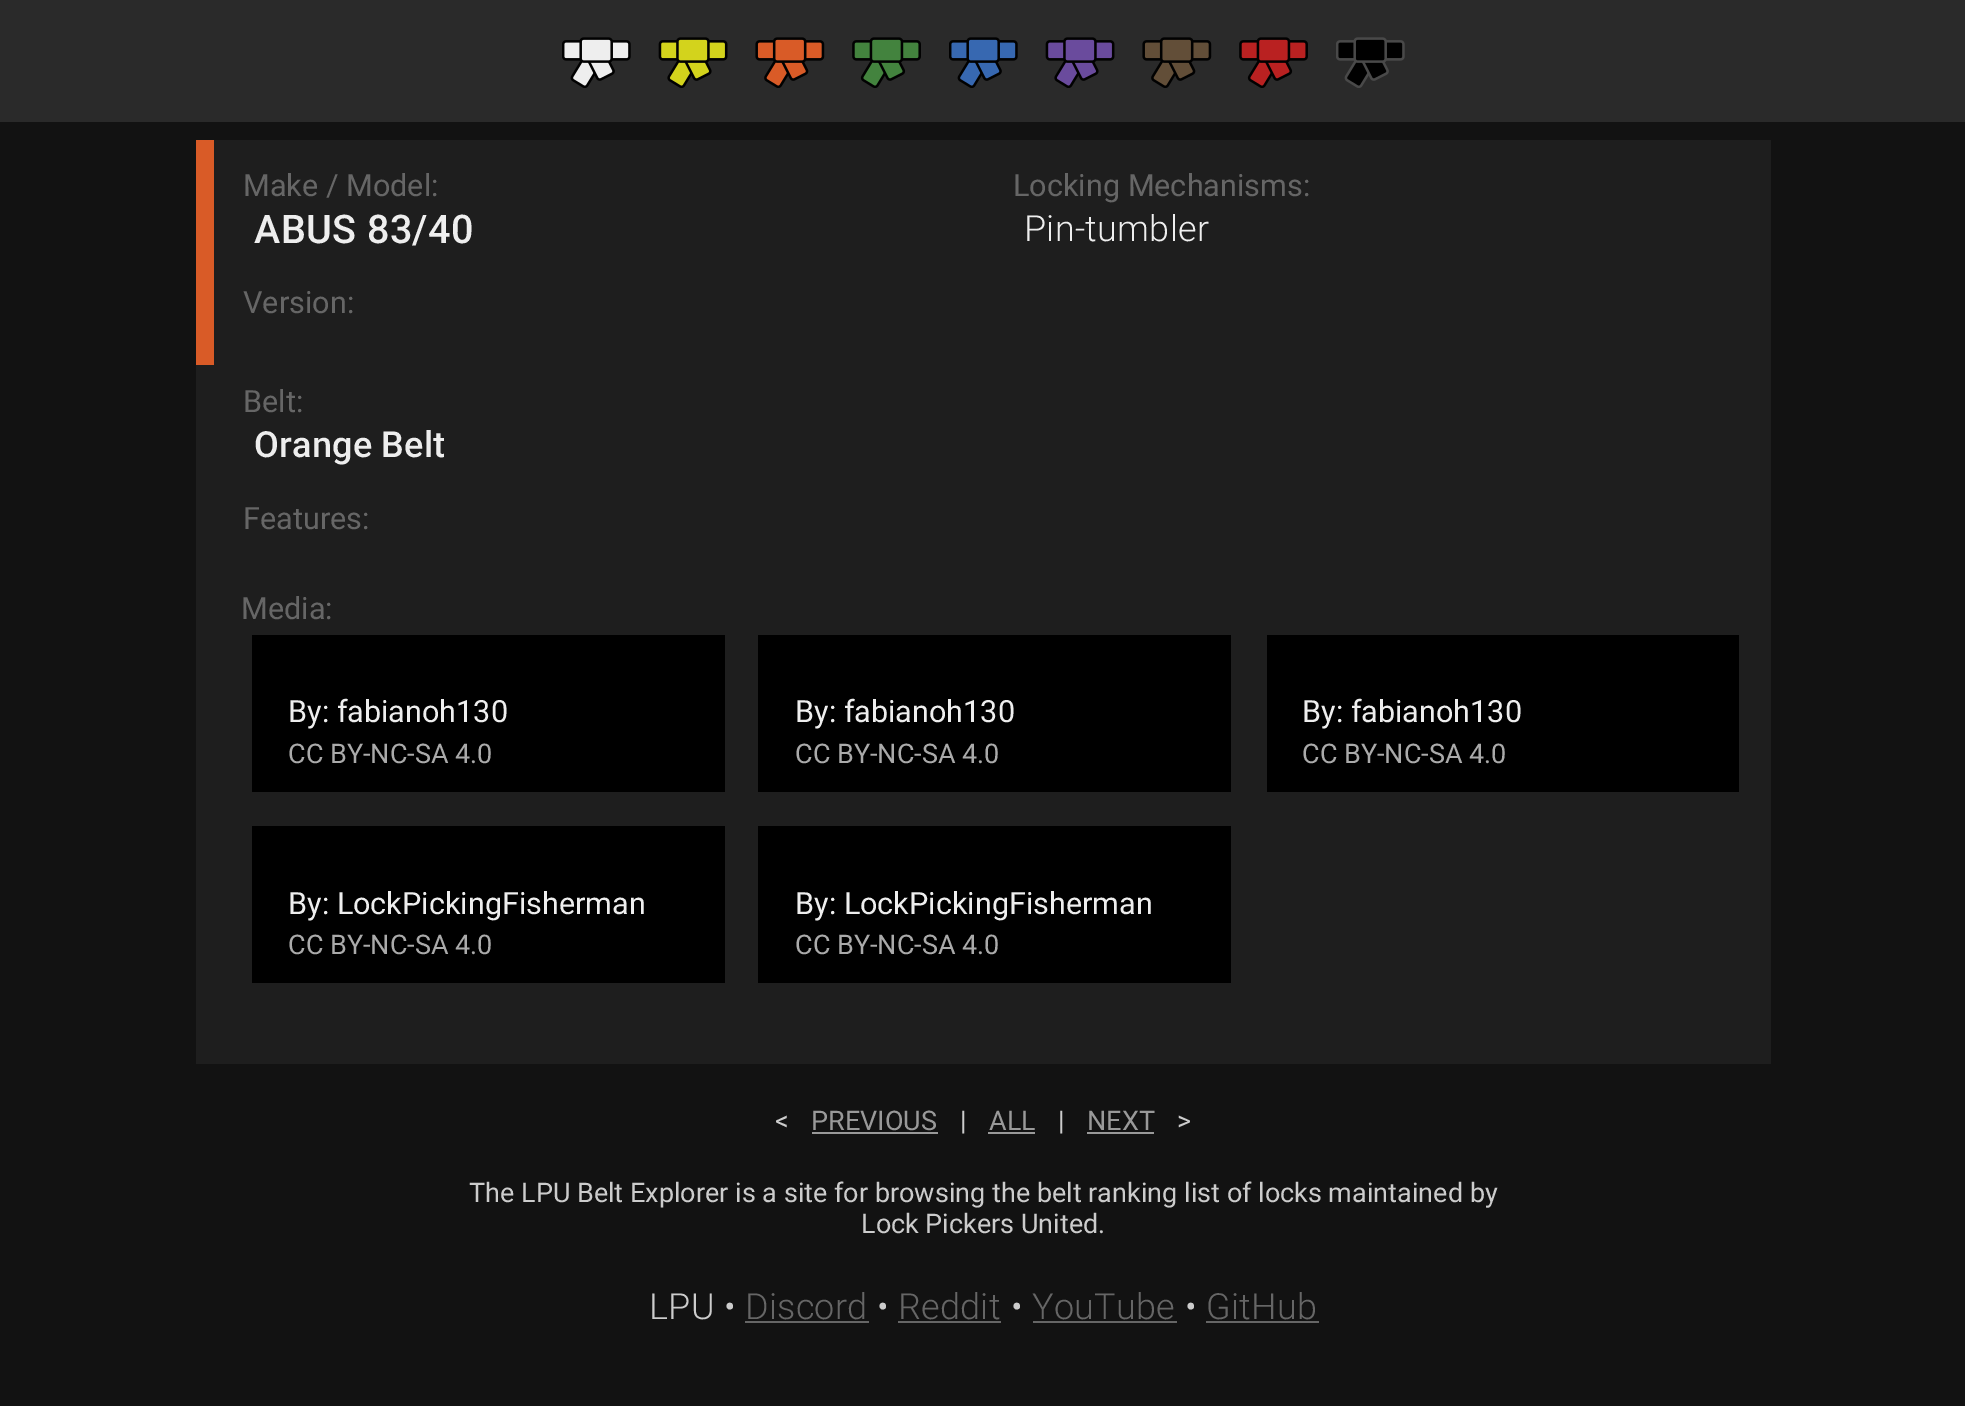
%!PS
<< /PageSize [1965 1406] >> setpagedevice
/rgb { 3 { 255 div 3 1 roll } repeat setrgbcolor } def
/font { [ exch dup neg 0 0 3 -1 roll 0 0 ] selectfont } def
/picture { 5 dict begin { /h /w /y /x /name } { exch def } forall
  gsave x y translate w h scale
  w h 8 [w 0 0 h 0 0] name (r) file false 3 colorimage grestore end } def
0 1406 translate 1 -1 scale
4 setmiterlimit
18 18 18 rgb
0 0 1965 1406 rectfill
42 42 42 rgb
0 0 1965 122 rectfill
(img/1.rgb) 562 37 69 51 picture
(img/2.rgb) 658 37 70 51 picture
(img/3.rgb) 755 37 70 51 picture
(img/4.rgb) 852 37 69 51 picture
(img/5.rgb) 949 37 69 51 picture
(img/6.rgb) 1045 37 70 51 picture
(img/7.rgb) 1142 37 70 51 picture
(img/8.rgb) 1239 37 69 51 picture
(img/9.rgb) 1336 37 69 51 picture
[
  [196 140 1575 924 30 30 30]
  [196 140 18 225 217 91 39]
  [252 635 473 157 0 0 0]
  [758 635 473 157 0 0 0]
  [1267 635 472 157 0 0 0]
  [252 826 473 157 0 0 0]
  [758 826 473 157 0 0 0]
  [812 1132 126 2 153 153 153]
  [988 1132 47 2 153 153 153]
  [1087 1132 67 2 153 153 153]
  [745 1321 124 2 102 102 102]
  [898 1321 103 2 102 102 102]
  [1033 1321 144 2 102 102 102]
  [1206 1321 113 2 102 102 102]
] { aload pop rgb rectfill } forall
/Roboto-Regular 30.6 font
243 196 moveto (Make / Model:) show
/Roboto-Medium 39.5 font
238 238 238 rgb
254 243 moveto 0.4 0 (ABUS 83/40) ashow
/Roboto-Regular 30.6 font
102 102 102 rgb
243 313 moveto (Version:) show
1013 196 moveto (Locking Mechanisms:) show
/Roboto-Light 36 font
238 238 238 rgb
1024 241 moveto 0.25 0 (Pin-tumbler) ashow
/Roboto-Regular 30.6 font
102 102 102 rgb
243 412 moveto (Belt:) show
/Roboto-Medium 36 font
238 238 238 rgb
254 457 moveto 0.25 0 (Orange Belt) ashow
/Roboto-Regular 30.6 font
102 102 102 rgb
243 529 moveto (Features:) show
241 619 moveto (Media:) show
238 238 238 rgb
288 722 moveto (By: fabianoh130) show
/Roboto-Regular 27 font
170 170 170 rgb
288 763 moveto (CC BY-NC-SA 4.0) show
/Roboto-Regular 30.6 font
238 238 238 rgb
795 722 moveto (By: fabianoh130) show
/Roboto-Regular 27 font
170 170 170 rgb
795 763 moveto (CC BY-NC-SA 4.0) show
/Roboto-Regular 30.6 font
238 238 238 rgb
1302 722 moveto (By: fabianoh130) show
/Roboto-Regular 27 font
170 170 170 rgb
1302 763 moveto (CC BY-NC-SA 4.0) show
/Roboto-Regular 30.6 font
238 238 238 rgb
288 914 moveto (By: LockPickingFisherman) show
/Roboto-Regular 27 font
170 170 170 rgb
288 954 moveto (CC BY-NC-SA 4.0) show
/Roboto-Regular 30.6 font
238 238 238 rgb
795 914 moveto (By: LockPickingFisherman) show
/Roboto-Regular 27 font
170 170 170 rgb
795 954 moveto (CC BY-NC-SA 4.0) show
204 204 204 rgb
775 1130 moveto (<) show
153 153 153 rgb
811 1130 moveto (PREVIOUS) show
204 204 204 rgb
960 1130 moveto (|) show
153 153 153 rgb
989 1130 moveto (ALL) show
204 204 204 rgb
1058 1130 moveto (|) show
153 153 153 rgb
1087 1130 moveto (NEXT) show
204 204 204 rgb
[
  [(>) 1177 1130]
  [(The LPU Belt Explorer is a site for browsing the belt ranking list of locks maintained by) 469 1202]
  [(Lock Pickers United.) 861 1233]
] { aload pop moveto show } forall
/Roboto-Light 36 font
649 1319 moveto 0.25 0 (LPU •) ashow
102 102 102 rgb
745 1319 moveto 0.25 0 (Discord) ashow
204 204 204 rgb
877 1319 moveto 0.25 0 (•) ashow
102 102 102 rgb
898 1319 moveto 0.25 0 (Reddit) ashow
204 204 204 rgb
1011 1319 moveto 0.25 0 (•) ashow
102 102 102 rgb
1032 1319 moveto 0.25 0 (YouTube) ashow
204 204 204 rgb
1185 1319 moveto 0.25 0 (•) ashow
102 102 102 rgb
1206 1319 moveto 0.25 0 (GitHub) ashow
showpage
